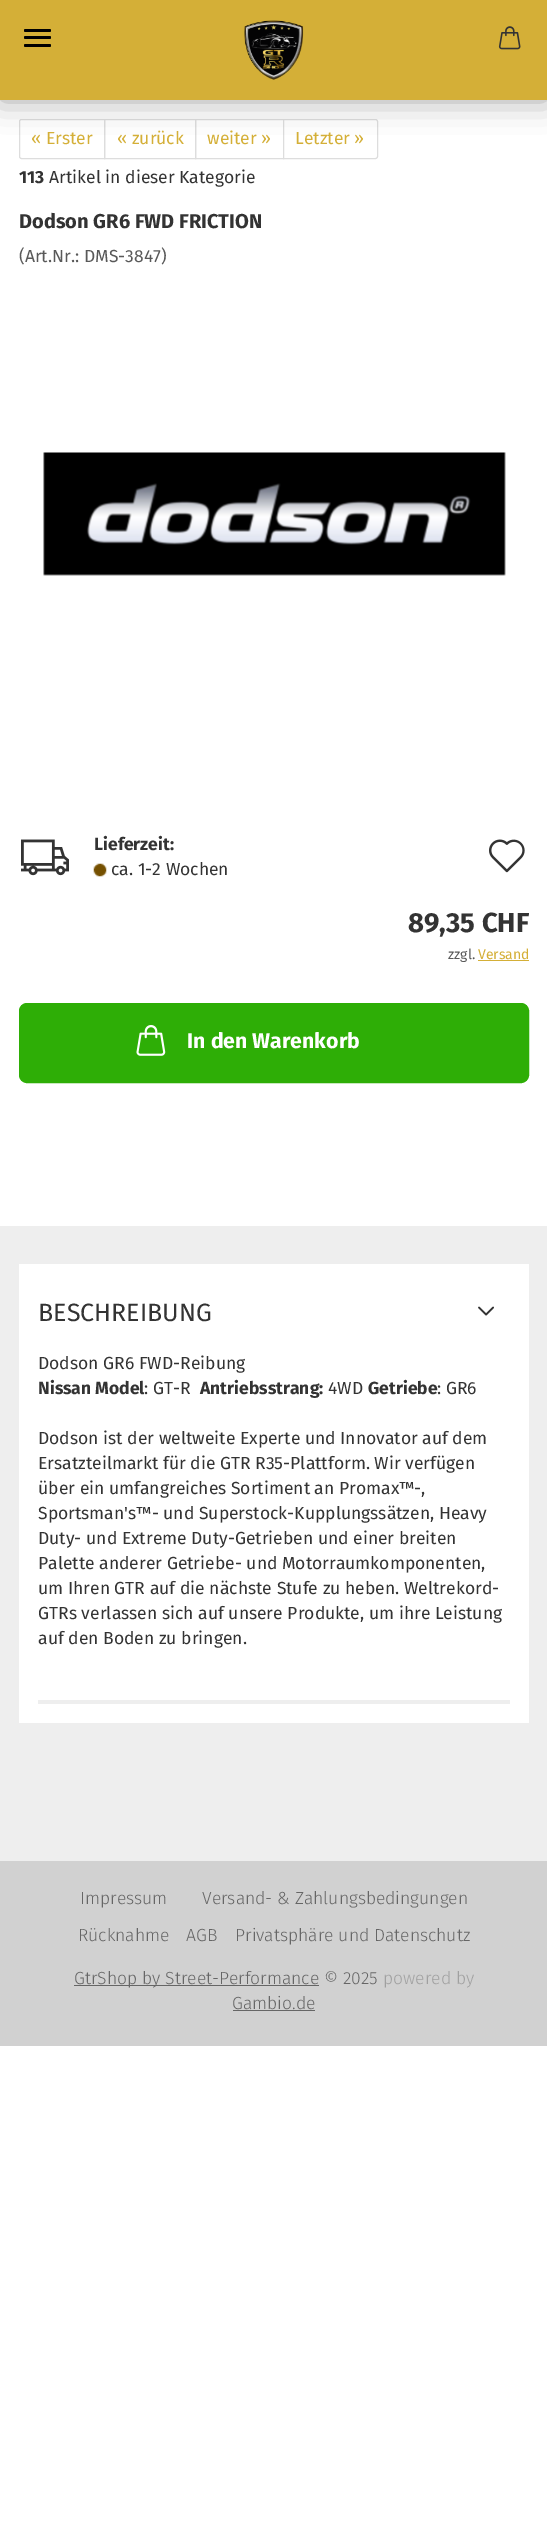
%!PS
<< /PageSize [547 2545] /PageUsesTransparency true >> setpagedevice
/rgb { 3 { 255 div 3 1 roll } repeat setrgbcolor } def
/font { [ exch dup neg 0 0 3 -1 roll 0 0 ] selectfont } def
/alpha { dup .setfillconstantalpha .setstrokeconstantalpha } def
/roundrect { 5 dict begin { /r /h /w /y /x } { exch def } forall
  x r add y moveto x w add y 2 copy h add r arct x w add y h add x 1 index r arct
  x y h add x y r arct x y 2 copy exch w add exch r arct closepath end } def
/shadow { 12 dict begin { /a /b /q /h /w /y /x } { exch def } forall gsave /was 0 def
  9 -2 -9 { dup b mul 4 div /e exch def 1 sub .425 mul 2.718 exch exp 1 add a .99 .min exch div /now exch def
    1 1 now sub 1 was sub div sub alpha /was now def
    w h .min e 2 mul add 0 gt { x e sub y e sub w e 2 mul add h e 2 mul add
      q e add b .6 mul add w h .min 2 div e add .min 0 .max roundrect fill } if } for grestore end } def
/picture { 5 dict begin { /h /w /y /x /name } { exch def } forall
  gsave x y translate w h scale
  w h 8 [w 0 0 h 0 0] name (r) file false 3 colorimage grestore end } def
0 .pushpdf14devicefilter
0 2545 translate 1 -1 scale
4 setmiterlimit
255 255 255 rgb
0 0 547 2545 rectfill
221 221 221 rgb
21.5 119.5 moveto 104.5 119.5 lineto 104.5 158.5 lineto 21.5 158.5 lineto 20.5 158.5 19.5 157.5 19.5 156.5 curveto 19.5 121.5 lineto 19.5 120.5 20.5 119.5 21.5 119.5 curveto closepath stroke
104.5 119.5 91 39 rectstroke
195.5 119.5 88 39 rectstroke
255 255 255 rgb
283.5 119.5 moveto 375.5 119.5 lineto 376.5 119.5 377.5 120.5 377.5 121.5 curveto 377.5 156.5 lineto 377.5 157.5 376.5 158.5 375.5 158.5 curveto 283.5 158.5 lineto closepath gsave fill grestore
221 221 221 rgb
stroke
0 0 0 rgb
0 0 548 100 0 15.5 0.35 shadow
212 175 55 rgb
0 0 547 100 rectfill
(img/1.rgb) 244 20 60 60 picture
(img/2.rgb) 498 26 23 24 picture
0 0 0 rgb
24 36 27 3 1.5 roundrect fill
24 29 27 3 1.5 roundrect fill
24 44 27 3 1.5 roundrect fill
(img/3.rgb) 43 452 463 124 picture
(img/4.rgb) 21 839 48 37 picture
(img/5.rgb) 93 863 14 14 picture
(img/6.rgb) 489 839 36 34 picture
212 175 55 rgb
478 960 51 1 rectfill
46 174 6 rgb
19.5 1003.5 509 79 7.5 roundrect gsave fill grestore
stroke
(img/7.rgb) 136 1025 30 31 picture
238 238 238 rgb
0 1226 547 635 rectfill
255 255 255 rgb
19 1264 510 459 rectfill
(img/8.rgb) 478 1306 16 10 picture
[
  [38 1700 472 4 238 238 238]
  [0 1861 547 185 209 209 209]
  [74 1985 245 1 102 102 102]
  [233 2010 82 1 102 102 102]
] { aload pop rgb rectfill } forall
/FiraSans-Regular 17.5 font
212 175 55 rgb
[
  [(« Erster) 31 144]
  [(« zurück) 117 144]
  [(weiter ») 207 144]
  [(Letzter ») 295 144]
] { aload pop moveto show } forall
/FiraSans-Bold 17.5 font
51 51 51 rgb
19 183 moveto (113) show
/FiraSans-Regular 17.5 font
49 183 moveto (Artikel in dieser Kategorie) show
/FiraSans-Bold 20 font
19 228 moveto (Dodson GR6 FWD FRICTION) show
/FiraSans-Regular 17.5 font
89 89 89 rgb
19 262 moveto (\(Art.Nr.: DMS-3847\)) show
/FiraSans-Bold 17.5 font
51 51 51 rgb
94 850 moveto (Lieferzeit:) show
/FiraSans-Regular 17.5 font
111 875 moveto (ca. 1-2 Wochen) show
/FiraSans-Bold 27.5 font
408 932 moveto (89,35 CHF) show
/FiraSans-Regular 14 font
89 89 89 rgb
448 959 moveto (zzgl.) show
212 175 55 rgb
478 959 moveto (Versand) show
/FiraSans-Bold 21.25 font
255 255 255 rgb
187 1048 moveto (In den Warenkorb) show
/FiraSans-Regular 25 font
51 51 51 rgb
38 1321 moveto (BESCHREIBUNG) show
/FiraSans-Regular 17.5 font
38 1369 moveto (Dodson GR6 FWD-Reibung) show
/FiraSans-Bold 17.5 font
38 1394 moveto (Nissan Model) show
/FiraSans-Regular 17.5 font
144 1394 moveto (: GT-R) show
/FiraSans-Bold 17.5 font
200 1394 moveto (Antriebsstrang:) show
/FiraSans-Regular 17.5 font
328 1394 moveto (4WD) show
/FiraSans-Bold 17.5 font
368 1394 moveto (Getriebe) show
/FiraSans-Regular 17.5 font
[
  [(: GR6) 437 1394]
  [(Dodson ist der weltweite Experte und Innovator auf dem) 38 1444]
  [(Ersatzteilmarkt für die GTR R35-Plattform. Wir verfügen) 38 1469]
  [(über ein umfangreiches Sortiment an Promax™-,) 38 1494]
  [(Sportsman's™- und Superstock-Kupplungssätzen, Heavy) 38 1519]
  [(Duty- und Extreme Duty-Getrieben und einer breiten) 38 1544]
  [(Palette anderer Getriebe- und Motorraumkomponenten,) 38 1569]
  [(um Ihren GTR auf die nächste Stufe zu heben. Weltrekord-) 38 1594]
  [(GTRs verlassen sich auf unsere Produkte, um ihre Leistung) 38 1619]
  [(auf den Boden zu bringen.) 38 1644]
] { aload pop moveto show } forall
/FiraSans-Light 17.5 font
102 102 102 rgb
[
  [(Impressum) 80 1904]
  [(Versand- & Zahlungsbedingungen) 202 1904]
  [(Rücknahme) 78 1941]
  [(AGB) 186 1941]
  [(Privatsphäre und Datenschutz) 235 1941]
  [(GtrShop by Street-Performance © 2025) 74 1984]
] { aload pop moveto show } forall
160 160 160 rgb
383 1984 moveto (powered by) show
102 102 102 rgb
232 2009 moveto (Gambio.de) show
.poppdf14devicefilter showpage
